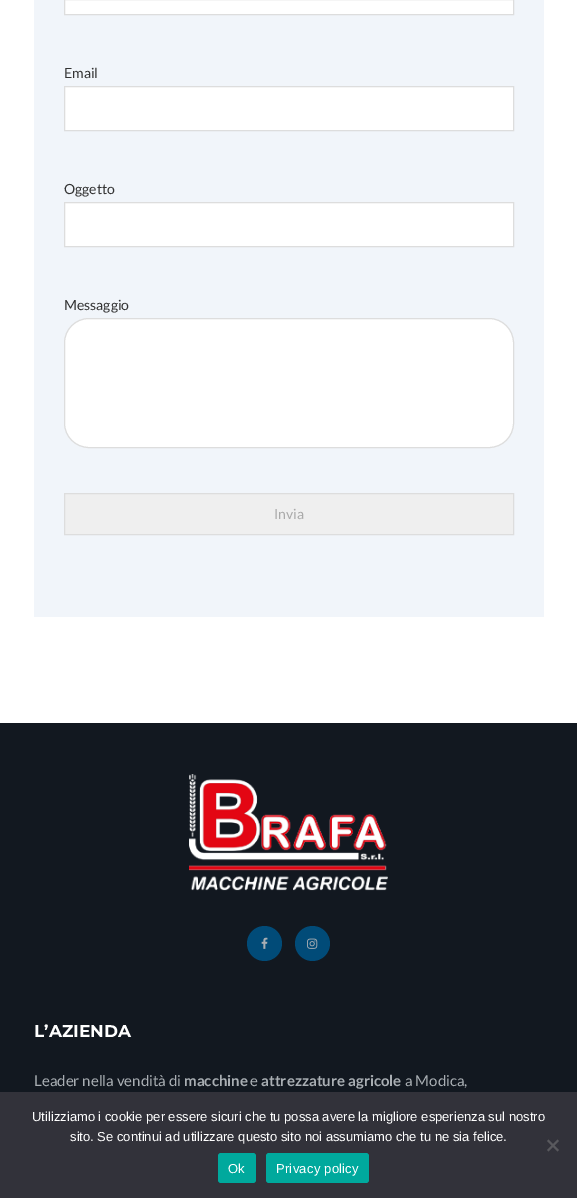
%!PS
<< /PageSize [577 1198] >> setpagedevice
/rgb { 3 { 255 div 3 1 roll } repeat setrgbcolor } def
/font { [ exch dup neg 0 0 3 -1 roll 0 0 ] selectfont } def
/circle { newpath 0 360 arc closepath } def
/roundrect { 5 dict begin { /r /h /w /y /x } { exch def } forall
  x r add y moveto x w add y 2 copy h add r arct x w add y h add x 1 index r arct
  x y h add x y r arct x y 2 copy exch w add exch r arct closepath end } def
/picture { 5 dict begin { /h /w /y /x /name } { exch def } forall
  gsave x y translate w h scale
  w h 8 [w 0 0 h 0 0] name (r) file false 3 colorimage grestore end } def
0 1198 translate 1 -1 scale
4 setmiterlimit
255 255 255 rgb
0 0 577 1198 rectfill
241 245 250 rgb
34 0 510 617 rectfill
255 255 255 rgb
64.5 -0.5 moveto 513.5 -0.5 lineto 513.5 14.5 lineto 64.5 14.5 lineto closepath gsave fill grestore
221 221 221 rgb
stroke
255 255 255 rgb
64.5 86.5 moveto 513.5 86.5 lineto 513.5 130.5 lineto 64.5 130.5 lineto closepath gsave fill grestore
221 221 221 rgb
stroke
255 255 255 rgb
64.5 202.5 moveto 513.5 202.5 lineto 513.5 246.5 lineto 64.5 246.5 lineto closepath gsave fill grestore
221 221 221 rgb
stroke
255 255 255 rgb
64.5 318.5 449 129 24.5 roundrect gsave fill grestore
221 221 221 rgb
stroke
239 239 239 rgb
64.5 493.5 moveto 513.5 493.5 lineto 513.5 534.5 lineto 64.5 534.5 lineto closepath gsave fill grestore
221 221 221 rgb
stroke
18 24 32 rgb
0 723 577 369 rectfill
(img/1.rgb) 189 774 199 117 picture
1 75 120 rgb
264.5 943.5 17.5 circle fill
(img/2.rgb) 261 937 7 12 picture
312.5 943.5 17.5 circle fill
(img/3.rgb) 307 938 11 11 picture
50 50 58 rgb
0 1092 577 106 rectfill
89 89 93 rgb
557.5 1139.5 moveto 559 1141 lineto 548.5 1151.5 lineto 547 1150 lineto closepath fill
547 1141 moveto 548.5 1139.5 lineto 559 1150 lineto 557.5 1151.5 lineto closepath fill
0 169 157 rgb
218 1153 38 30 3 roundrect fill
266 1153 103 30 3 roundrect fill
/Lato-Regular 14 font
51 51 51 rgb
[
  [(Email) 64 78]
  [(Oggetto) 64 194]
  [(Messaggio) 64 310]
] { aload pop moveto show } forall
170 170 170 rgb
274 519 moveto (Invia) show
/Montserrat-Bold 17 font
255 255 255 rgb
34 1037 moveto (L’AZIENDA) show
/Lato-Regular 15 font
169 174 179 rgb
34 1086 moveto (Leader nella vendità di) show
/Lato-Bold 15 font
184 1086 moveto (macchine) show
/Lato-Regular 15 font
250 1086 moveto (e) show
/Lato-Bold 15 font
261 1086 moveto (attrezzature agricole) show
/Lato-Regular 15 font
405 1086 moveto (a Modica,) show
/LiberationSans-Regular 13 font
255 255 255 rgb
32 1121 moveto (Utilizziamo i cookie per essere sicuri che tu possa avere la migliore esperienza sul nostro) show
70 1141 moveto (sito. Se continui ad utilizzare questo sito noi assumiamo che tu ne sia felice.) show
228 1173 moveto 0.25 0 (Ok) ashow
276 1173 moveto 0.25 0 (Privacy policy) ashow
showpage
